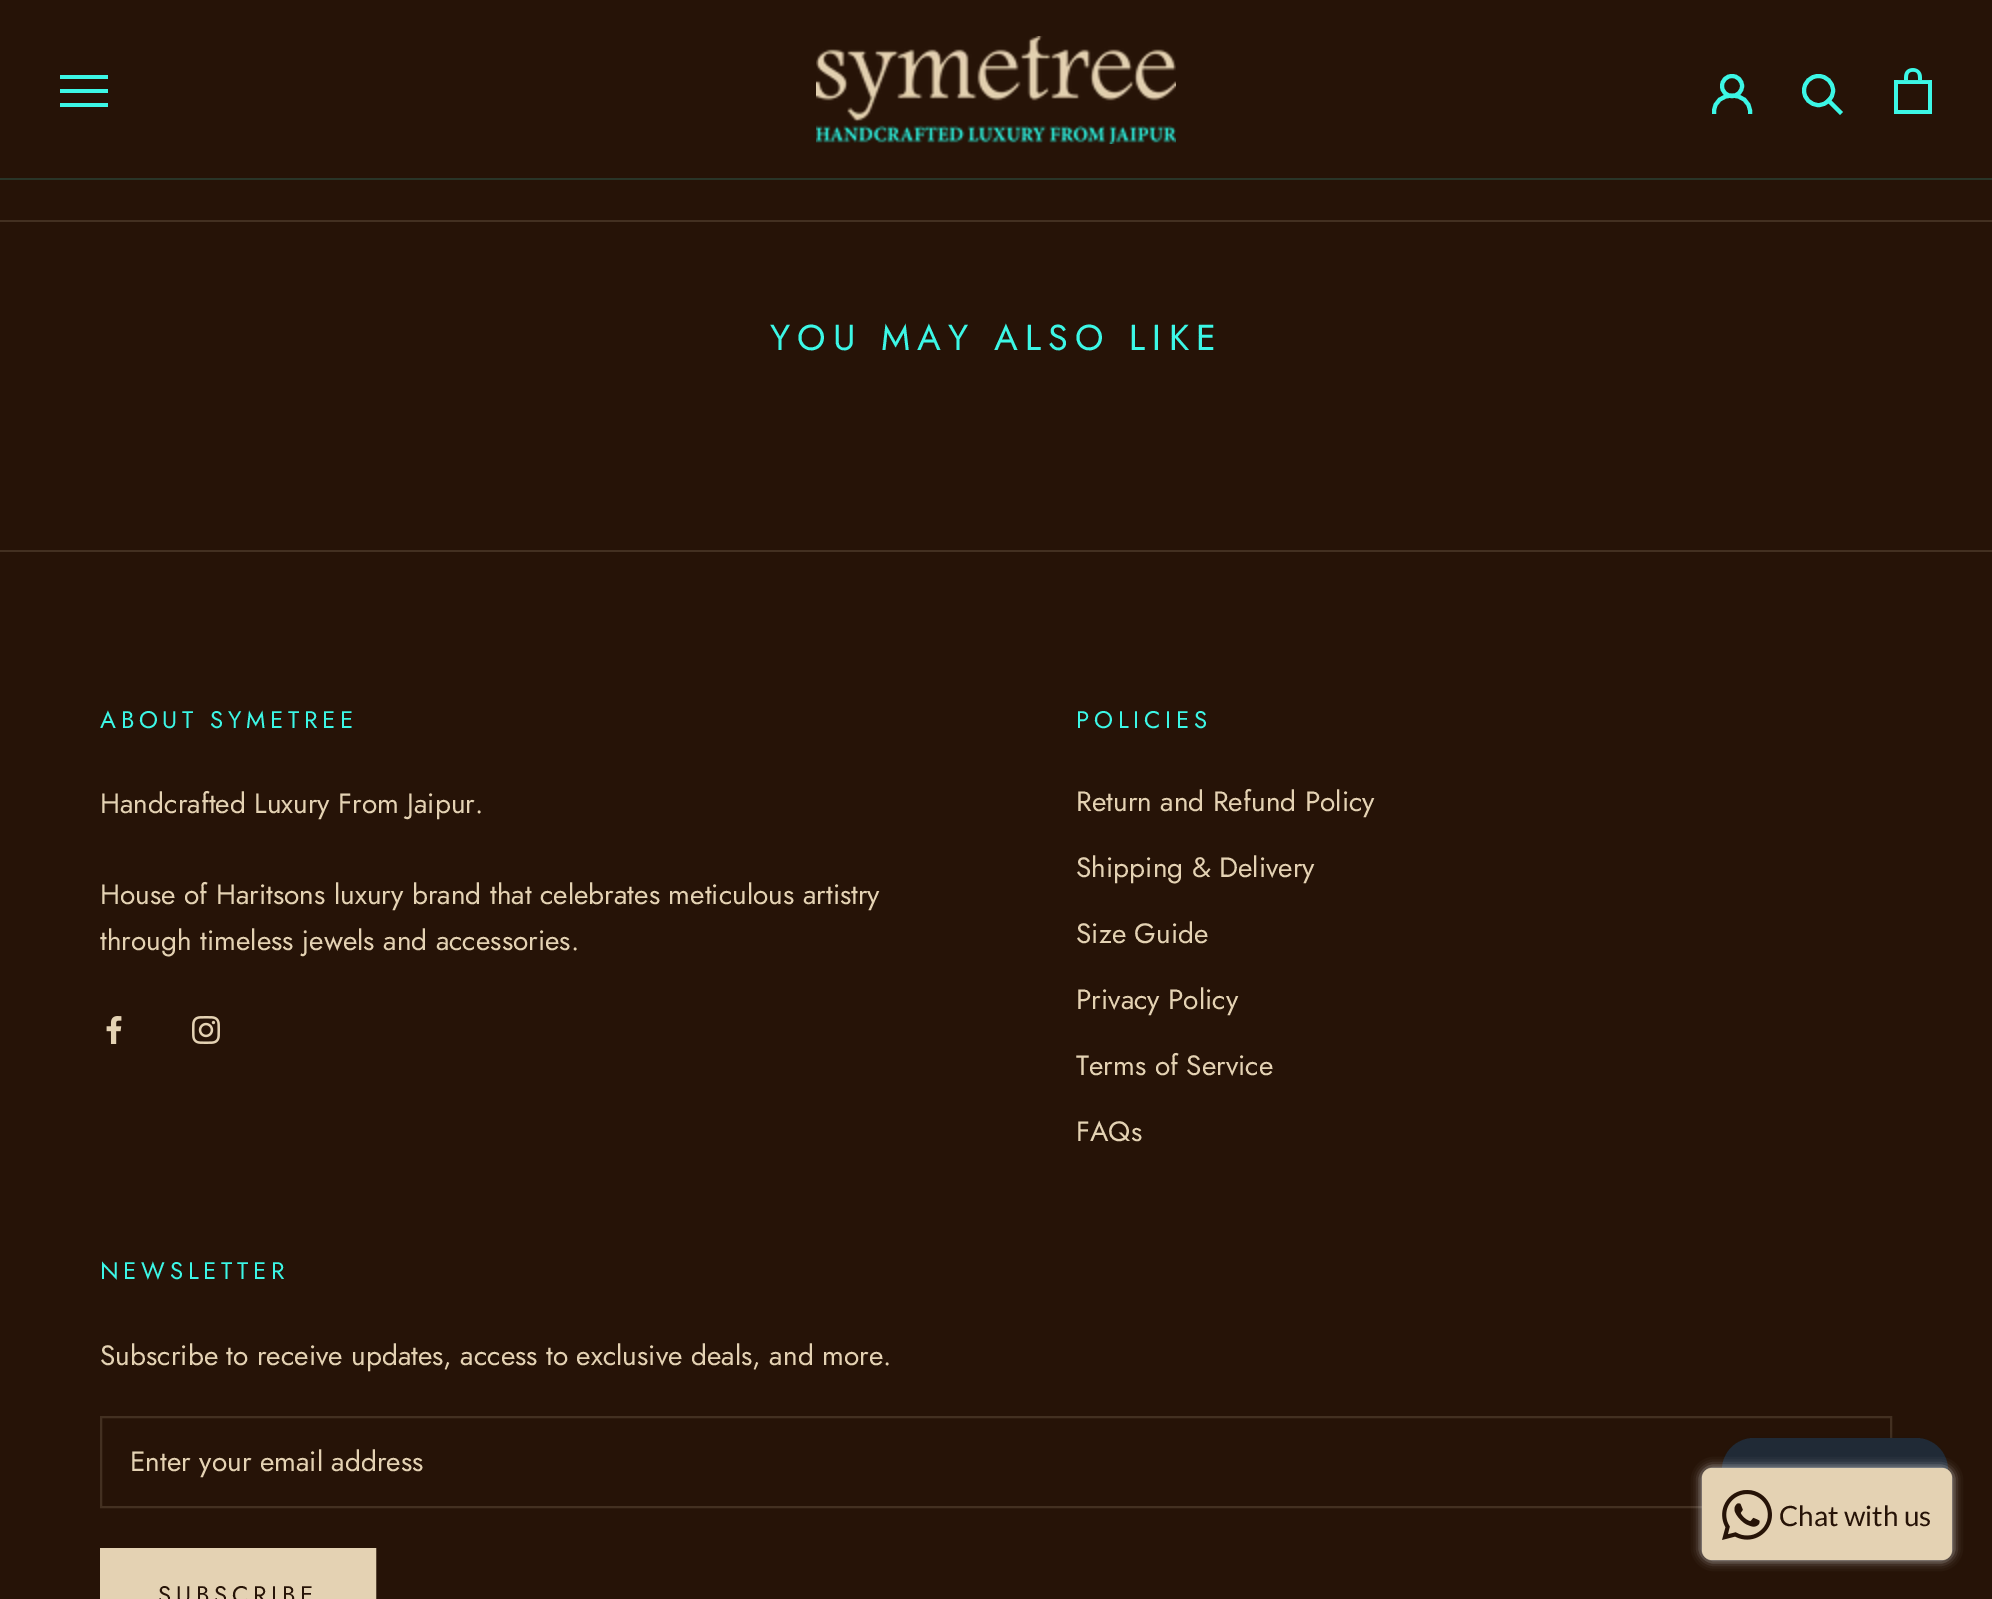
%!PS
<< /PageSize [1992 1599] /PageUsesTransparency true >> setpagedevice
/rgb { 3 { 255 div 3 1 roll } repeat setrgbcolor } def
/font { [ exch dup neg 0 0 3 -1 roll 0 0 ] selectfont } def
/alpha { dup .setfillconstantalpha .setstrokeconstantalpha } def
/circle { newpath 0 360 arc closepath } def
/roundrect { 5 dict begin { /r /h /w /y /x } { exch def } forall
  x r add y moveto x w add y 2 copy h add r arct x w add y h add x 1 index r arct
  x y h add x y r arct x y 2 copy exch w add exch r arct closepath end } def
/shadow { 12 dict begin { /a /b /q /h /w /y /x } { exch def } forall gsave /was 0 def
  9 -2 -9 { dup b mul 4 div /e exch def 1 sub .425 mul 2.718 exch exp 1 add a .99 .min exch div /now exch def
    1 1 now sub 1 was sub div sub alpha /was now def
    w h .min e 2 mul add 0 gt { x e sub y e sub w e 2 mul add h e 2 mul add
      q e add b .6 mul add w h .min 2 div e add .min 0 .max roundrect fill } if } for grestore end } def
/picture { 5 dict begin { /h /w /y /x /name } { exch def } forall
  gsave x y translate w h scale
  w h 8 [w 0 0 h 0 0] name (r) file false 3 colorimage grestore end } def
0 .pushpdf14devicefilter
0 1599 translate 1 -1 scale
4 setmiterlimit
38 19 7 rgb
0 0 1992 1599 rectfill
41 53 40 rgb
0 178 1992 2 rectfill
60 247 230 rgb
60 107 moveto 60 103 lineto 108 103 lineto 108 107 lineto closepath 60 89 moveto 108 89 lineto 108 93 lineto 60 93 lineto closepath 60 75 moveto 108 75 lineto 108 79 lineto 60 79 lineto closepath fill
(img/1.rgb) 816 36 360 108 picture
4 setlinewidth
2 setlinecap
1714 112 moveto 1714 90 1750 90 1750 112 curveto stroke
0 setlinecap
1732 86 10 circle stroke
2 setlinecap
1840 112 moveto 1828.5 100.5 lineto stroke
0 setlinecap
1818.5 90.5 14.5 circle stroke
(img/2.rgb) 1894 68 38 46 picture
67 48 33 rgb
0 220 1992 2 rectfill
0 550 1992 2 rectfill
(img/3.rgb) 106 1016 16 28 picture
(img/4.rgb) 192 1016 28 28 picture
2 setlinewidth
101 1417 1790 90 rectstroke
228 210 179 rgb
101 1549 274 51 rectstroke
102 1550 272 49 rectfill
0 0 0 rgb
1722 1438 226 120 32 5 0.15 shadow
32 42 54 rgb
1722 1438 226 120 32 roundrect fill
211 211 211 rgb
1702 1468 250 92 10 5 1 shadow
228 210 179 rgb
1702 1468 250 92 10 roundrect fill
(img/5.rgb) 1722 1490 50 50 picture
/Jost-Regular 36 font
60 247 230 rgb
770 350 moveto 7.25 0 (YOU MAY ALSO LIKE) ashow
/Jost-Regular 24 font
100 728 moveto 4.75 0 (ABOUT SYMETREE) ashow
/Jost-Regular 28 font
228 210 179 rgb
[
  [(Handcrafted Luxury From Jaipur.) 100 813]
  [(House of Haritsons luxury brand that celebrates meticulous artistry) 100 904]
  [(through timeless jewels and accessories.) 100 950]
] { aload pop moveto show } forall
/Jost-Regular 24 font
60 247 230 rgb
1076 728 moveto 4.75 0 (POLICIES) ashow
/Jost-Regular 28 font
228 210 179 rgb
[
  [(Return and Refund Policy) 1076 811]
  [(Shipping & Delivery) 1076 877]
  [(Size Guide) 1076 943]
  [(Privacy Policy) 1076 1009]
  [(Terms of Service) 1076 1075]
  [(FAQs) 1076 1141]
] { aload pop moveto show } forall
/Jost-Regular 24 font
60 247 230 rgb
100 1279 moveto 4.75 0 (NEWSLETTER) ashow
/Jost-Regular 28 font
228 210 179 rgb
100 1365 moveto (Subscribe to receive updates, access to exclusive deals, and more.) show
130 1471 moveto (Enter your email address) show
/Jost-Regular 24 font
38 19 7 rgb
158 1603 moveto 4.75 0 (SUBSCRIBE) ashow
/Lato-Regular 28 font
1779 1526 moveto (Chat with us) show
.poppdf14devicefilter showpage
